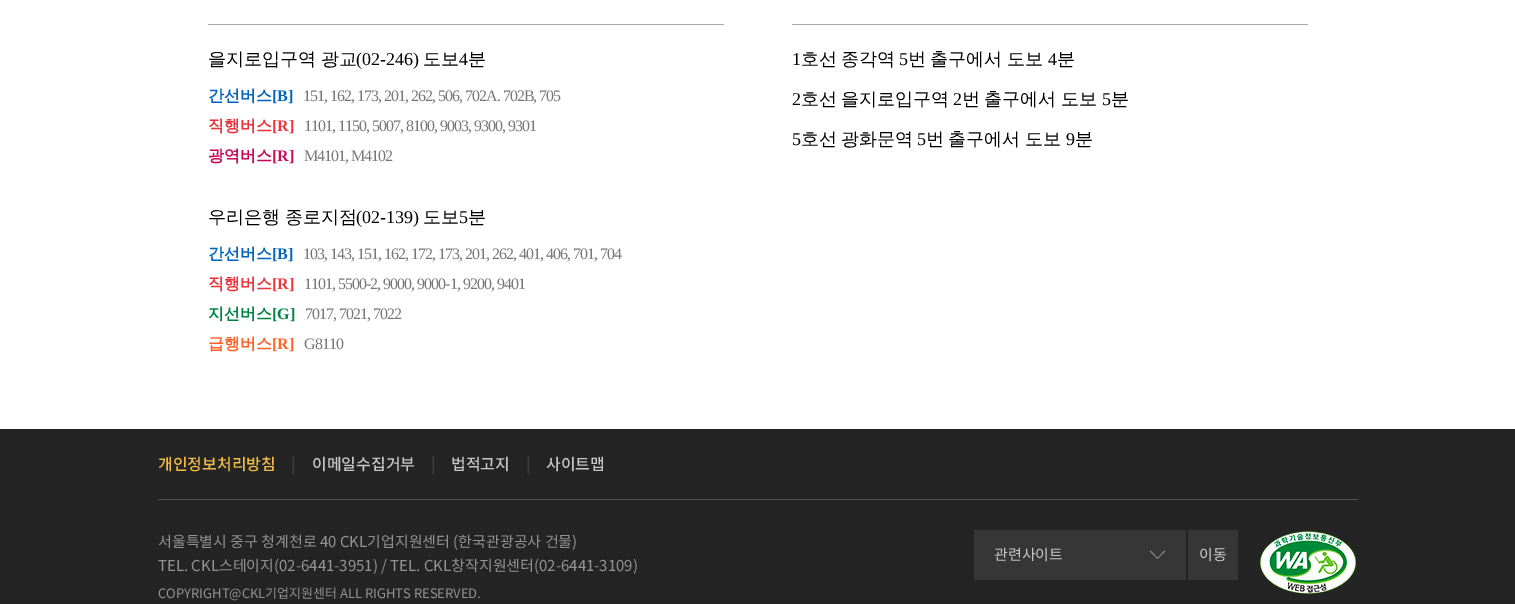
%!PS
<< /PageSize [1515 604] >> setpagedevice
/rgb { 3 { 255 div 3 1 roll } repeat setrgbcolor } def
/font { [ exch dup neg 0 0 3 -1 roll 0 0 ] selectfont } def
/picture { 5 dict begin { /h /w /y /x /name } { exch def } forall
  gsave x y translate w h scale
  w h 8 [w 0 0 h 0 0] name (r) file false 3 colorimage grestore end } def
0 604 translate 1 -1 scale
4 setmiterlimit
255 255 255 rgb
0 0 1515 604 rectfill
[
  [208 24 516 1 169 169 169]
  [792 24 516 1 169 169 169]
  [0 429 1515 175 36 36 36]
  [158 499 1200 1 80 80 80]
  [974 530 212 50 54 54 54]
] { aload pop rgb rectfill } forall
135 135 135 rgb
1164.5 550.5 moveto 1165.5 551 lineto 1157.5 559 lineto 1157 558.5 lineto closepath fill
1150.5 550.5 moveto 1158 558.5 lineto 1157.5 559 lineto 1149.5 551 lineto closepath fill
54 54 54 rgb
1188 530 50 50 rectfill
(img/1.rgb) 1260 531 96 63 picture
/WenQuanYiZenHei-Medium 18 font
0 0 0 rgb
208 65 moveto (을지로입구역 광교) show
/LiberationSerif-Regular 18 font
356 65 moveto (\(02-246\)) show
/WenQuanYiZenHei-Medium 18 font
423 65 moveto (도보) show
/LiberationSerif-Regular 18 font
459 65 moveto (4) show
/WenQuanYiZenHei-Medium 18 font
468 65 moveto (분) show
/WenQuanYiZenHei-Bold 16 font
0 100 190 rgb
208 101 moveto (간선버스) show
/LiberationSerif-Bold 16 font
272 101 moveto ([B]) show
/LiberationSerif-Regular 16 font
119 119 119 rgb
303 101 moveto -1 0 (151, 162, 173, 201, 262, 506, 702A. 702B, 705) ashow
/WenQuanYiZenHei-Bold 16 font
238 50 58 rgb
208 131 moveto (직행버스) show
/LiberationSerif-Bold 16 font
272 131 moveto ([R]) show
/LiberationSerif-Regular 16 font
119 119 119 rgb
304 131 moveto -1 0 (1101, 1150, 5007, 8100, 9003, 9300, 9301) ashow
/WenQuanYiZenHei-Bold 16 font
201 9 88 rgb
208 161 moveto (광역버스) show
/LiberationSerif-Bold 16 font
272 161 moveto ([R]) show
/LiberationSerif-Regular 16 font
119 119 119 rgb
304 161 moveto -1 0 (M4101, M4102) ashow
/WenQuanYiZenHei-Medium 18 font
0 0 0 rgb
208 223 moveto (우리은행 종로지점) show
/LiberationSerif-Regular 18 font
356 223 moveto (\(02-139\)) show
/WenQuanYiZenHei-Medium 18 font
423 223 moveto (도보) show
/LiberationSerif-Regular 18 font
459 223 moveto (5) show
/WenQuanYiZenHei-Medium 18 font
468 223 moveto (분) show
/WenQuanYiZenHei-Bold 16 font
0 100 190 rgb
208 259 moveto (간선버스) show
/LiberationSerif-Bold 16 font
272 259 moveto ([B]) show
/LiberationSerif-Regular 16 font
119 119 119 rgb
303 259 moveto -1 0 (103, 143, 151, 162, 172, 173, 201, 262, 401, 406, 701, 704) ashow
/WenQuanYiZenHei-Bold 16 font
238 50 58 rgb
208 289 moveto (직행버스) show
/LiberationSerif-Bold 16 font
272 289 moveto ([R]) show
/LiberationSerif-Regular 16 font
119 119 119 rgb
304 289 moveto -1 0 (1101, 5500-2, 9000, 9000-1, 9200, 9401) ashow
/WenQuanYiZenHei-Bold 16 font
0 132 67 rgb
208 319 moveto (지선버스) show
/LiberationSerif-Bold 16 font
272 319 moveto ([G]) show
/LiberationSerif-Regular 16 font
119 119 119 rgb
305 319 moveto -1 0 (7017, 7021, 7022) ashow
/WenQuanYiZenHei-Bold 16 font
253 98 38 rgb
208 349 moveto (급행버스) show
/LiberationSerif-Bold 16 font
272 349 moveto ([R]) show
/LiberationSerif-Regular 16 font
119 119 119 rgb
304 349 moveto -1 0 (G8110) ashow
/LiberationSerif-Regular 18 font
0 0 0 rgb
792 65 moveto (1) show
/WenQuanYiZenHei-Medium 18 font
801 65 moveto -1 0 32 (호선 종각역) widthshow
/LiberationSerif-Regular 18 font
899 65 moveto (5) show
/WenQuanYiZenHei-Medium 18 font
908 65 moveto -1 0 32 (번 출구에서 도보) widthshow
/LiberationSerif-Regular 18 font
1048 65 moveto (4) show
/WenQuanYiZenHei-Medium 18 font
1057 65 moveto (분) show
/LiberationSerif-Regular 18 font
792 105 moveto (2) show
/WenQuanYiZenHei-Medium 18 font
801 105 moveto -1 0 32 (호선 을지로입구역) widthshow
/LiberationSerif-Regular 18 font
953 105 moveto (2) show
/WenQuanYiZenHei-Medium 18 font
962 105 moveto -1 0 32 (번 출구에서 도보) widthshow
/LiberationSerif-Regular 18 font
1102 105 moveto (5) show
/WenQuanYiZenHei-Medium 18 font
1111 105 moveto (분) show
/LiberationSerif-Regular 18 font
792 145 moveto (5) show
/WenQuanYiZenHei-Medium 18 font
801 145 moveto -1 0 32 (호선 광화문역) widthshow
/LiberationSerif-Regular 18 font
917 145 moveto (5) show
/WenQuanYiZenHei-Medium 18 font
926 145 moveto -1 0 32 (번 출구에서 도보) widthshow
/LiberationSerif-Regular 18 font
1066 145 moveto (9) show
/WenQuanYiZenHei-Medium 18 font
1075 145 moveto (분) show
/NotoSansKR-Medium 16 font
239 187 71 rgb
158 470 moveto (개인정보처리방침) show
/NotoSansKR-Regular 16 font
74 74 74 rgb
291 470 moveto (|) show
/NotoSansKR-Medium 16 font
198 198 198 rgb
312 470 moveto (이메일수집거부) show
/NotoSansKR-Regular 16 font
74 74 74 rgb
431 470 moveto (|) show
/NotoSansKR-Medium 16 font
198 198 198 rgb
451 470 moveto (법적고지) show
/NotoSansKR-Regular 16 font
74 74 74 rgb
526 470 moveto (|) show
/NotoSansKR-Medium 16 font
198 198 198 rgb
546 470 moveto (사이트맵) show
/NotoSansKR-Regular 15 font
146 146 146 rgb
158 547 moveto (서울특별시 중구 청계천로 40 CKL기업지원센터 \(한국관광공사 건물\)) show
158 571 moveto (TEL. CKL스테이지\(02-6441-3951\) / TEL. CKL창작지원센터\(02-6441-3109\)) show
/NotoSansKR-Regular 13 font
158 598 moveto (COPYRIGHT@CKL기업지원센터 ALL RIGHTS RESERVED.) show
/NotoSansKR-Regular 15 font
198 198 198 rgb
994 560 moveto (관련사이트) show
204 204 204 rgb
1199 560 moveto (이동) show
showpage
